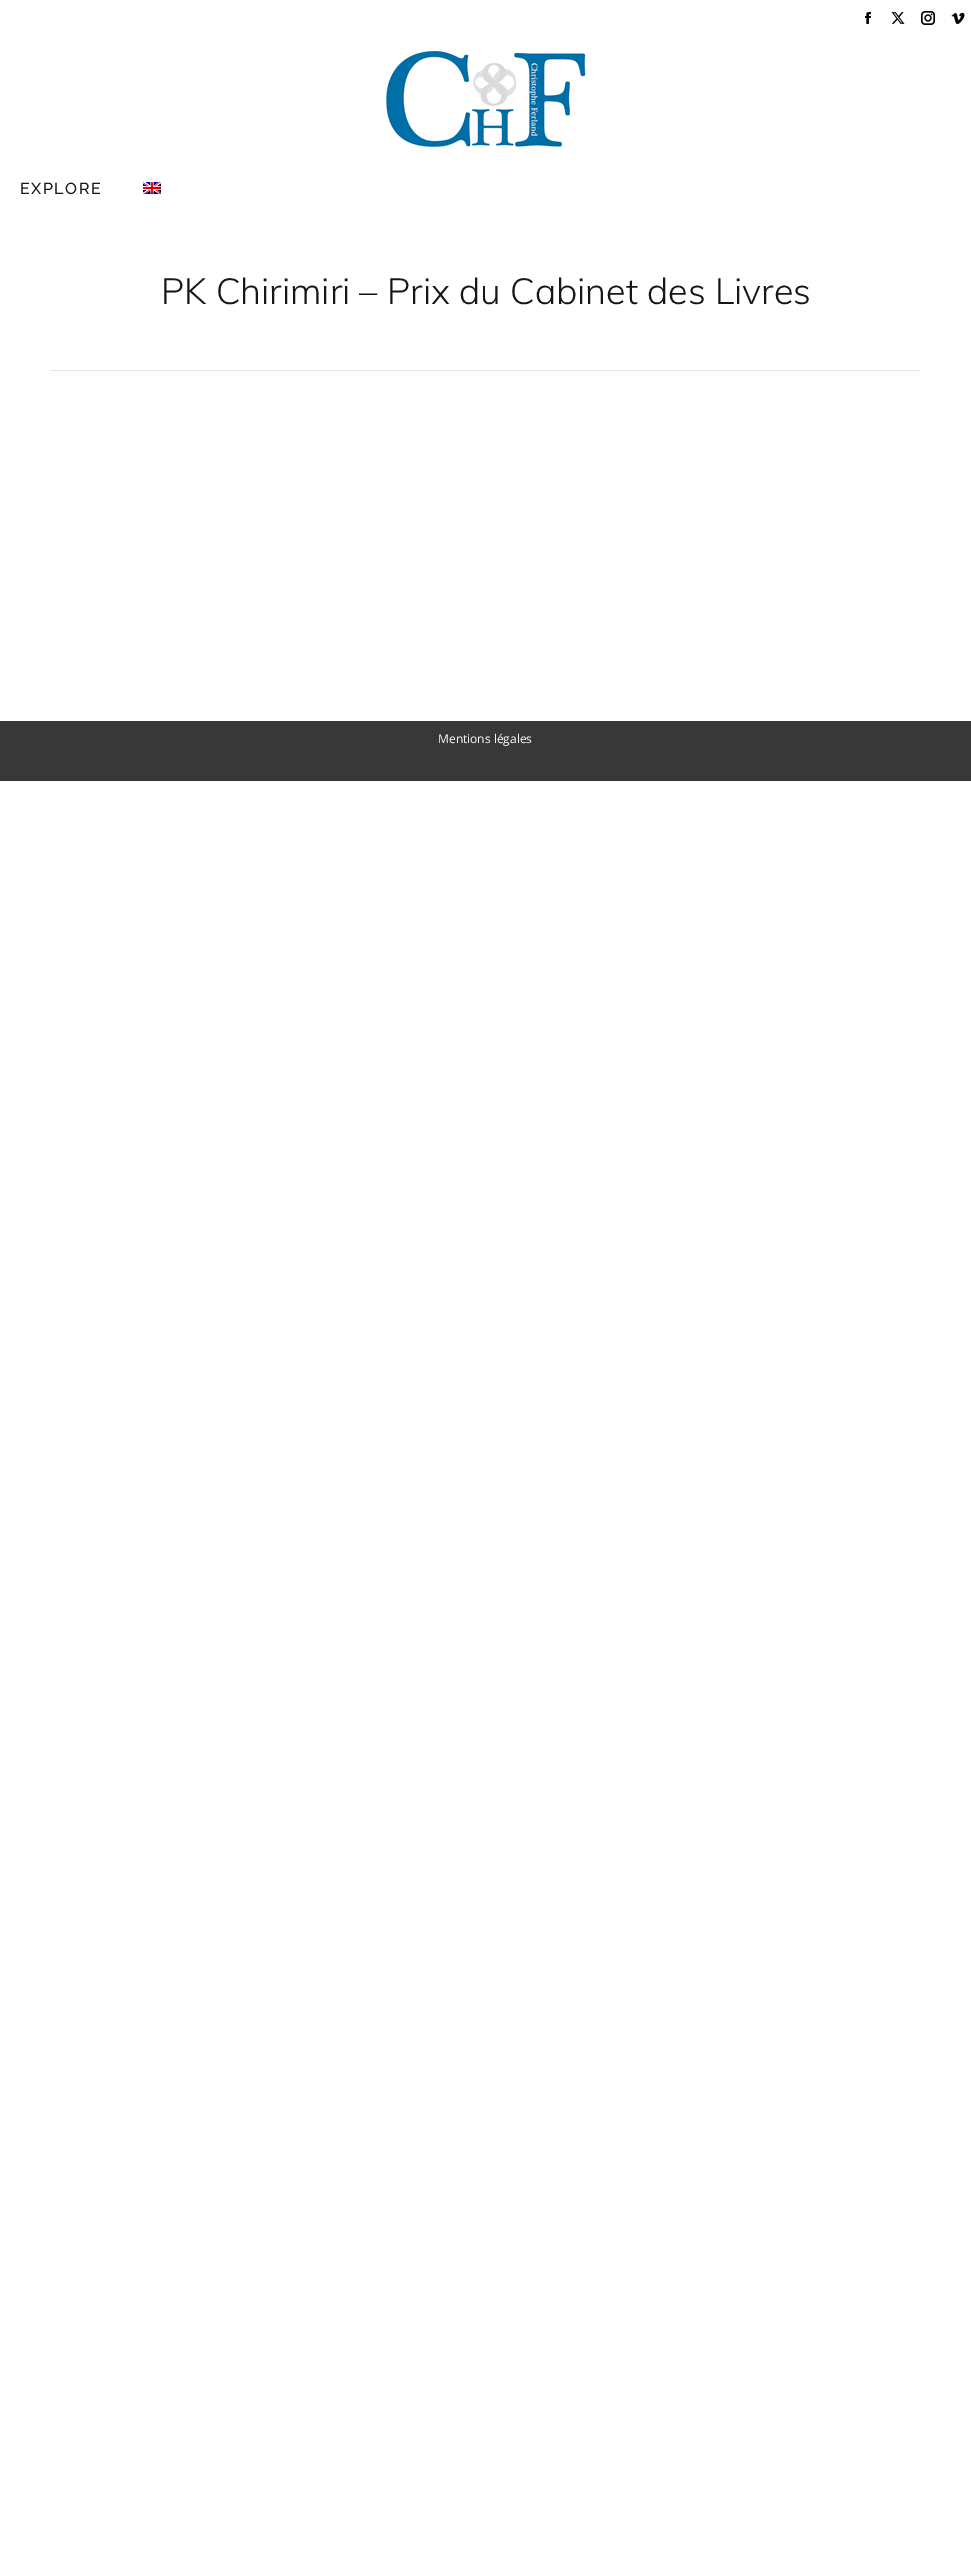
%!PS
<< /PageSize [971 2570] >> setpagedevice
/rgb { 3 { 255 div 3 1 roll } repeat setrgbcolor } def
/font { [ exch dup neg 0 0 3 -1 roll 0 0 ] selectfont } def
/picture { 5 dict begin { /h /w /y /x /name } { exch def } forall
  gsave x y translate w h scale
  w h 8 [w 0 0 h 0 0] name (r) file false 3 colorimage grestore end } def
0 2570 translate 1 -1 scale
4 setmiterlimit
255 255 255 rgb
0 0 971 2570 rectfill
(img/1.rgb) 865 12 6 12 picture
(img/2.rgb) 891 12 14 12 picture
(img/3.rgb) 921 11 14 14 picture
(img/4.rgb) 951 12 14 13 picture
(img/5.rgb) 386 51 200 96 picture
(img/6.rgb) 143 182 18 12 picture
230 230 230 rgb
50 370 871 1 rectfill
56 56 56 rgb
0 721 971 60 rectfill
/Raleway-Medium 16 font
19 23 25 rgb
20 194 moveto 1.5 0 (EXPLORE) ashow
/Muli-Light 36 font
161 304 moveto (PK Chirimiri – Prix du Cabinet des Livres) show
/OpenSans-Regular 12 font
255 255 255 rgb
438 743 moveto (Mentions légales) show
showpage
